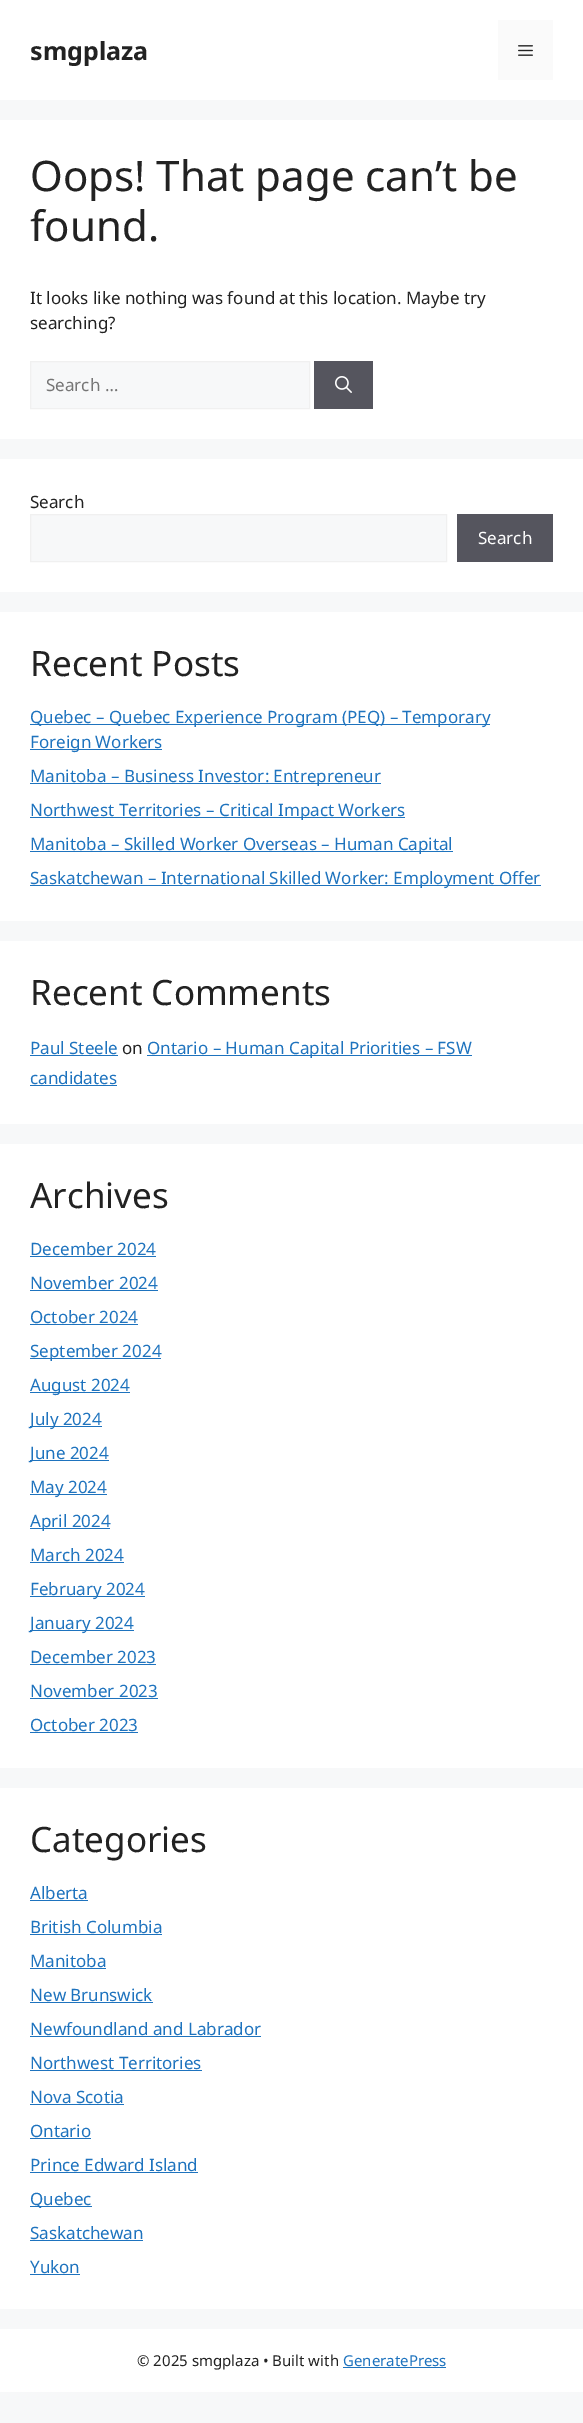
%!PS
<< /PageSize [583 2423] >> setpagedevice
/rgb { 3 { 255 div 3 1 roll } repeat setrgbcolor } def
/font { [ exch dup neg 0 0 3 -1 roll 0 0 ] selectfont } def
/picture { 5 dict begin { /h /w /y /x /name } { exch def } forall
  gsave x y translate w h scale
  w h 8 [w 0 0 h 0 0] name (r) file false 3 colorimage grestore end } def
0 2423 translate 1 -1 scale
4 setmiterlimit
247 248 249 rgb
0 0 583 2423 rectfill
255 255 255 rgb
0 0 583 100 rectfill
250 250 250 rgb
498 20 55 60 rectfill
(img/1.rgb) 518 45 15 11 picture
255 255 255 rgb
0 120 583 319 rectfill
247 248 249 rgb
30.5 361.5 moveto 309.5 361.5 lineto 309.5 408.5 lineto 30.5 408.5 lineto closepath gsave fill grestore
240 240 240 rgb
stroke
85 85 94 rgb
314 361 59 48 rectfill
(img/2.rgb) 335 376 17 17 picture
255 255 255 rgb
0 459 583 133 rectfill
247 248 249 rgb
30.5 514.5 moveto 446.5 514.5 lineto 446.5 561.5 lineto 30.5 561.5 lineto closepath gsave fill grestore
240 240 240 rgb
stroke
[
  [457 514 96 48 85 85 94]
  [0 612 583 309 255 255 255]
  [30 724 460 1 30 115 190]
  [30 749 132 1 30 115 190]
  [30 783 351 1 30 115 190]
  [30 817 375 1 30 115 190]
  [30 851 423 1 30 115 190]
  [30 885 511 1 30 115 190]
  [0 941 583 183 255 255 255]
  [30 1055 88 1 30 115 190]
  [147 1055 325 1 30 115 190]
  [30 1085 87 1 30 115 190]
  [0 1144 583 624 255 255 255]
  [30 1256 126 1 30 115 190]
  [30 1290 128 1 30 115 190]
  [30 1324 108 1 30 115 190]
  [30 1358 131 1 30 115 190]
  [30 1392 100 1 30 115 190]
  [30 1426 72 1 30 115 190]
  [30 1460 79 1 30 115 190]
  [30 1494 77 1 30 115 190]
  [30 1528 80 1 30 115 190]
  [30 1562 94 1 30 115 190]
  [30 1596 115 1 30 115 190]
  [30 1630 104 1 30 115 190]
  [30 1664 126 1 30 115 190]
  [30 1698 128 1 30 115 190]
  [30 1732 108 1 30 115 190]
  [0 1788 583 521 255 255 255]
  [30 1900 58 1 30 115 190]
  [30 1934 132 1 30 115 190]
  [30 1968 76 1 30 115 190]
  [30 2002 123 1 30 115 190]
  [30 2036 231 1 30 115 190]
  [30 2070 172 1 30 115 190]
  [30 2104 94 1 30 115 190]
  [30 2138 61 1 30 115 190]
  [30 2172 168 1 30 115 190]
  [30 2206 62 1 30 115 190]
  [30 2240 113 1 30 115 190]
  [30 2274 50 1 30 115 190]
  [0 2329 583 63 255 255 255]
  [343 2367 103 1 30 115 190]
] { aload pop rgb rectfill } forall
/NotoSans-Bold 25 font
34 34 34 rgb
30 60 moveto (smgplaza) show
/NotoSans-Regular 42 font
30 191 moveto (Oops! That page can’t be) show
30 241 moveto (found.) show
/NotoSans-Regular 17 font
30 304 moveto (It looks like nothing was found at this location. Maybe try) show
30 329 moveto (searching?) show
117 117 117 rgb
46 391 moveto (Search …) show
34 34 34 rgb
30 508 moveto (Search) show
255 255 255 rgb
478 544 moveto (Search) show
/NotoSans-Regular 35 font
34 34 34 rgb
30 676 moveto (Recent Posts) show
/NotoSans-Regular 17 font
30 115 190 rgb
[
  [(Quebec – Quebec Experience Program \(PEQ\) – Temporary) 30 723]
  [(Foreign Workers) 30 748]
  [(Manitoba – Business Investor: Entrepreneur) 30 782]
  [(Northwest Territories – Critical Impact Workers) 30 816]
  [(Manitoba – Skilled Worker Overseas – Human Capital) 30 850]
  [(Saskatchewan – International Skilled Worker: Employment Offer) 30 884]
] { aload pop moveto show } forall
/NotoSans-Regular 35 font
34 34 34 rgb
30 1005 moveto (Recent Comments) show
/NotoSans-Regular 17 font
30 115 190 rgb
30 1054 moveto (Paul Steele) show
34 34 34 rgb
122 1054 moveto (on) show
30 115 190 rgb
147 1054 moveto (Ontario – Human Capital Priorities – FSW) show
30 1084 moveto (candidates) show
/NotoSans-Regular 35 font
34 34 34 rgb
30 1208 moveto (Archives) show
/NotoSans-Regular 17 font
30 115 190 rgb
[
  [(December 2024) 30 1255]
  [(November 2024) 30 1289]
  [(October 2024) 30 1323]
  [(September 2024) 30 1357]
  [(August 2024) 30 1391]
  [(July 2024) 30 1425]
  [(June 2024) 30 1459]
  [(May 2024) 30 1493]
  [(April 2024) 30 1527]
  [(March 2024) 30 1561]
  [(February 2024) 30 1595]
  [(January 2024) 30 1629]
  [(December 2023) 30 1663]
  [(November 2023) 30 1697]
  [(October 2023) 30 1731]
] { aload pop moveto show } forall
/NotoSans-Regular 35 font
34 34 34 rgb
30 1852 moveto (Categories) show
/NotoSans-Regular 17 font
30 115 190 rgb
[
  [(Alberta) 30 1899]
  [(British Columbia) 30 1933]
  [(Manitoba) 30 1967]
  [(New Brunswick) 30 2001]
  [(Newfoundland and Labrador) 30 2035]
  [(Northwest Territories) 30 2069]
  [(Nova Scotia) 30 2103]
  [(Ontario) 30 2137]
  [(Prince Edward Island) 30 2171]
  [(Quebec) 30 2205]
  [(Saskatchewan) 30 2239]
  [(Yukon) 30 2273]
] { aload pop moveto show } forall
/NotoSans-Regular 15 font
34 34 34 rgb
137 2366 moveto (© 2025 smgplaza • Built with) show
30 115 190 rgb
343 2366 moveto (GeneratePress) show
showpage
